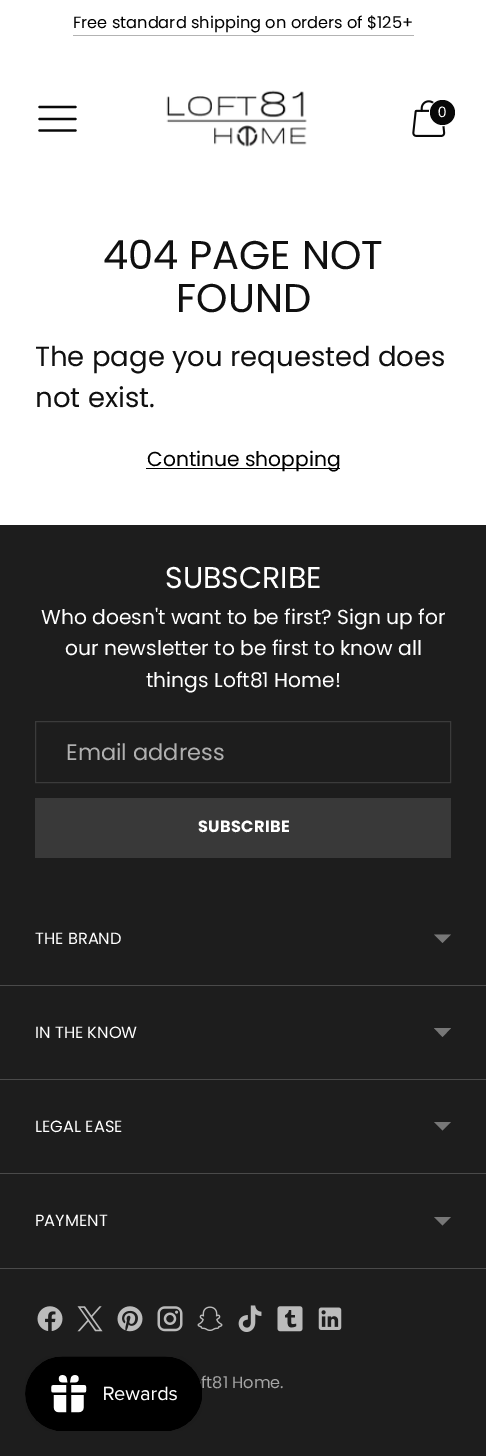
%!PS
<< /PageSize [486 1456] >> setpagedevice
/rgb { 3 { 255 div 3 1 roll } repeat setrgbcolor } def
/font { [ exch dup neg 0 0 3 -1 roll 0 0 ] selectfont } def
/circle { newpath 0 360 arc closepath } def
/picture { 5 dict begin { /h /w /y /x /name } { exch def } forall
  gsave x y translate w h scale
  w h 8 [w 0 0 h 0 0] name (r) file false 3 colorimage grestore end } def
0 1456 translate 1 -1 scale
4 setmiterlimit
255 255 255 rgb
0 0 486 1456 rectfill
179 179 179 rgb
73 35 341 1 rectfill
8 8 8 rgb
2.3 setlinewidth
1 setlinecap
1 setlinejoin
39.5 119 moveto 75.5 119 lineto 39.5 107 moveto 75.5 107 lineto 39.5 130.5 moveto 75.5 130.5 lineto stroke
(img/1.rgb) 166 90 141 57 picture
(img/2.rgb) 412 100 34 37 picture
255 255 255 rgb
1 setlinewidth
0 setlinecap
0 setlinejoin
442.5 112.5 13 circle stroke
8 8 8 rgb
442.5 112.5 12.5 circle fill
0 0 0 rgb
146 468 194 1 rectfill
29 29 29 rgb
0 525 486 931 rectfill
59 59 59 rgb
35.5 721.5 415 61 rectstroke
57 57 57 rgb
35 798 416 60 rectfill
74 74 74 rgb
0 985 486 1 rectfill
119 119 119 rgb
434 934.5 moveto 442.5 943 lineto 451 934.5 lineto closepath fill
74 74 74 rgb
0 1079 486 1 rectfill
119 119 119 rgb
434 1028 moveto 442.5 1037 lineto 451 1028 lineto closepath fill
74 74 74 rgb
0 1173 486 1 rectfill
119 119 119 rgb
434 1122 moveto 442.5 1130.5 lineto 451 1122 lineto closepath fill
74 74 74 rgb
0 1268 486 1 rectfill
119 119 119 rgb
434 1217 moveto 442.5 1225.5 lineto 451 1217 lineto closepath fill
(img/3.rgb) 37 1306 26 25 picture
(img/4.rgb) 77 1306 26 26 picture
(img/5.rgb) 117 1306 26 26 picture
(img/6.rgb) 157 1306 26 26 picture
(img/7.rgb) 197 1306 26 25 picture
(img/8.rgb) 238 1305 24 27 picture
(img/9.rgb) 277 1306 26 26 picture
(img/10.rgb) 318 1307 24 23 picture
/Poppins-Regular 16.25 font
0 0 0 rgb
73 28 moveto (Free standard shipping on orders of $125+) show
/LiberationSans-Regular 15 font
255 255 255 rgb
438 117 moveto (0) show
/Poppins-Regular 40 font
16 16 16 rgb
103 269 moveto (404 PAGE NOT) show
176 312 moveto (FOUND) show
/Poppins-Regular 27.5 font
35 366 moveto (The page you requested does) show
35 407 moveto (not exist.) show
/Poppins-Regular 20.25 font
0 0 0 rgb
147 466 moveto (Continue shopping) show
/Poppins-Regular 30 font
255 255 255 rgb
165 588 moveto (SUBSCRIBE) show
/Poppins-Regular 20.25 font
[
  [(Who doesn't want to be first? Sign up) 41 624]
  [(for) 418 624]
  [(our newsletter to be first to know all) 65 655]
  [(things Loft81 Home!) 146 687]
] { aload pop moveto show } forall
/Poppins-Regular 22.5 font
176 176 176 rgb
66 760 moveto (Email address) show
/Poppins-Bold 16.25 font
255 255 255 rgb
198 832 moveto 0.25 0 (SUBSCRIBE) ashow
/Poppins-Regular 16.25 font
[
  [(THE BRAND) 35 944]
  [(IN THE KNOW) 35 1038]
  [(LEGAL EASE) 35 1132]
  [(PAYMENT) 35 1226]
] { aload pop moveto show } forall
165 165 165 rgb
201 1388 moveto (ft81 Home.) show
(img/11.rgb) 25 1356 177 75 picture
showpage
